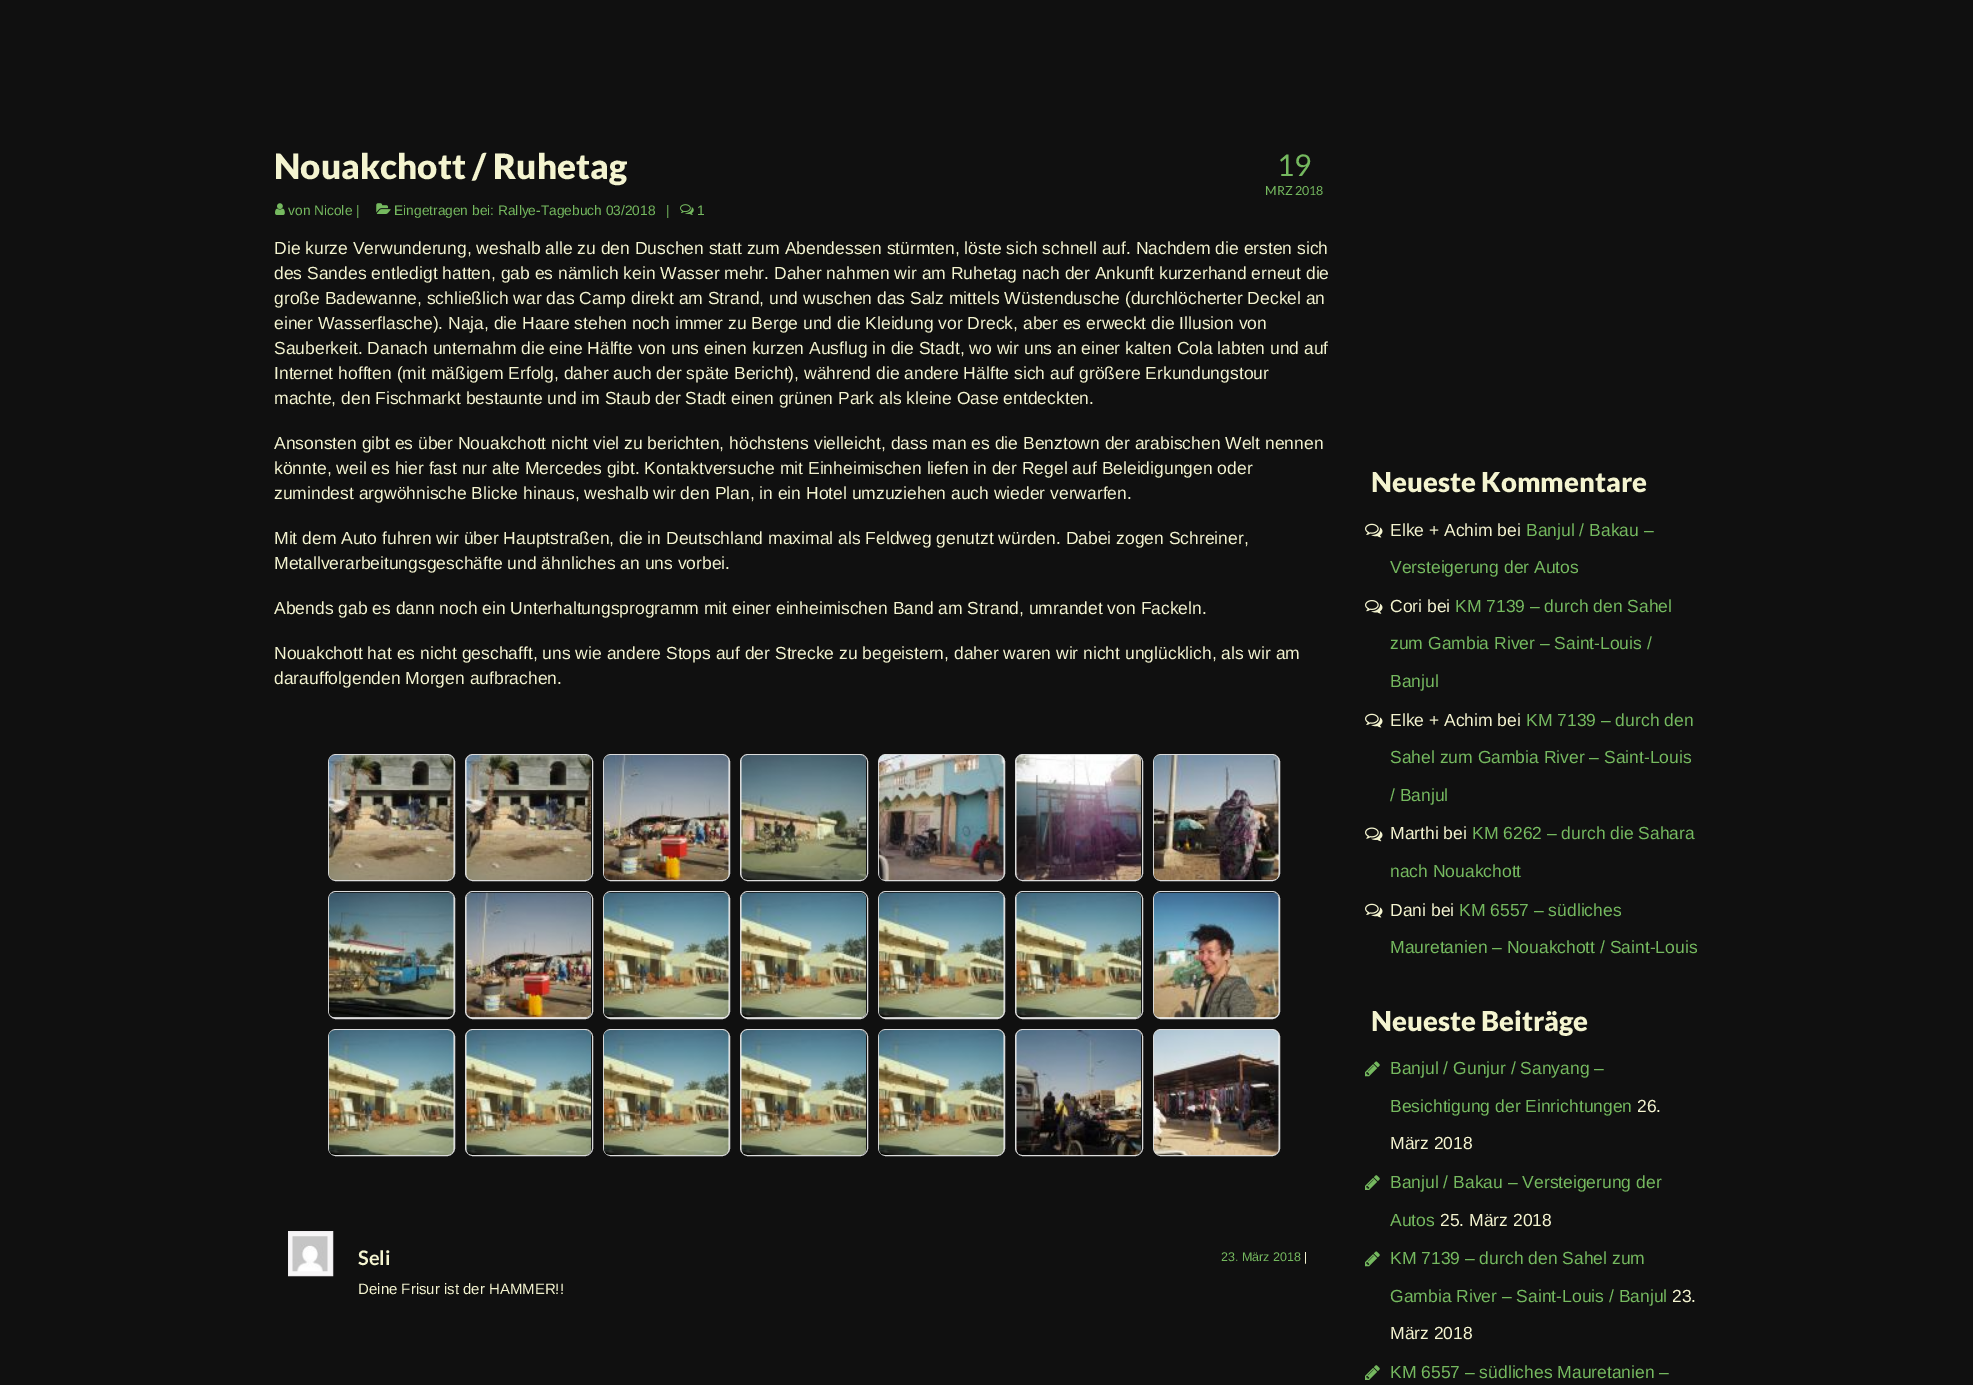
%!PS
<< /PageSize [1973 1385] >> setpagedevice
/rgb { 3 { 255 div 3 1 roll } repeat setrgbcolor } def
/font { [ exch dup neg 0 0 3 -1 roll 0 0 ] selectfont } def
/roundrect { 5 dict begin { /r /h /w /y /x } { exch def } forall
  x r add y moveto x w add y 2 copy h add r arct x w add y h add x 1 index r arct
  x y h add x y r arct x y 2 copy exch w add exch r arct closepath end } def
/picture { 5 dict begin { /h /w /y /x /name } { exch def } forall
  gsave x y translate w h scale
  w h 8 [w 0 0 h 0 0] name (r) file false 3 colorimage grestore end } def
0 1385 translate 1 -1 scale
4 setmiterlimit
16 16 16 rgb
0 0 1973 1385 rectfill
(img/1.rgb) 275 203 10 12 picture
(img/2.rgb) 376 203 15 11 picture
(img/3.rgb) 680 204 14 11 picture
221 221 221 rgb
328.5 754.5 126 126 7.5 roundrect stroke
255 255 255 rgb
329 755 125 125 6 roundrect fill
(img/4.rgb) 328 755 126 125 picture
221 221 221 rgb
465.5 754.5 127 126 7.5 roundrect stroke
255 255 255 rgb
466 755 125 125 6 roundrect fill
(img/5.rgb) 466 755 126 125 picture
221 221 221 rgb
603.5 754.5 126 126 7.5 roundrect stroke
255 255 255 rgb
604 755 125 125 6 roundrect fill
(img/6.rgb) 603 755 126 125 picture
221 221 221 rgb
740.5 754.5 127 126 7.5 roundrect stroke
255 255 255 rgb
741 755 125 125 6 roundrect fill
(img/7.rgb) 741 755 126 125 picture
221 221 221 rgb
878.5 754.5 126 126 7.5 roundrect stroke
255 255 255 rgb
879 755 125 125 6 roundrect fill
(img/8.rgb) 878 755 126 125 picture
221 221 221 rgb
1015.5 754.5 127 126 7.5 roundrect stroke
255 255 255 rgb
1016 755 125 125 6 roundrect fill
(img/9.rgb) 1016 755 126 125 picture
221 221 221 rgb
1153.5 754.5 126 126 7.5 roundrect stroke
255 255 255 rgb
1154 755 125 125 6 roundrect fill
(img/10.rgb) 1153 755 126 125 picture
221 221 221 rgb
328.5 891.5 126 127 7.5 roundrect stroke
255 255 255 rgb
329 893 125 125 6 roundrect fill
(img/11.rgb) 328 892 126 126 picture
221 221 221 rgb
465.5 891.5 127 127 7.5 roundrect stroke
255 255 255 rgb
466 893 125 125 6 roundrect fill
(img/12.rgb) 466 892 126 126 picture
221 221 221 rgb
603.5 891.5 126 127 7.5 roundrect stroke
255 255 255 rgb
604 893 125 125 6 roundrect fill
(img/13.rgb) 603 892 126 126 picture
221 221 221 rgb
740.5 891.5 127 127 7.5 roundrect stroke
255 255 255 rgb
741 893 125 125 6 roundrect fill
(img/14.rgb) 741 892 126 126 picture
221 221 221 rgb
878.5 891.5 126 127 7.5 roundrect stroke
255 255 255 rgb
879 893 125 125 6 roundrect fill
(img/15.rgb) 878 892 126 126 picture
221 221 221 rgb
1015.5 891.5 127 127 7.5 roundrect stroke
255 255 255 rgb
1016 893 125 125 6 roundrect fill
(img/16.rgb) 1016 892 126 126 picture
221 221 221 rgb
1153.5 891.5 126 127 7.5 roundrect stroke
255 255 255 rgb
1154 893 125 125 6 roundrect fill
(img/17.rgb) 1153 892 126 126 picture
221 221 221 rgb
328.5 1029.5 126 126 7.5 roundrect stroke
255 255 255 rgb
329 1030 125 125 6 roundrect fill
(img/18.rgb) 328 1030 126 125 picture
221 221 221 rgb
465.5 1029.5 127 126 7.5 roundrect stroke
255 255 255 rgb
466 1030 125 125 6 roundrect fill
(img/19.rgb) 466 1030 126 125 picture
221 221 221 rgb
603.5 1029.5 126 126 7.5 roundrect stroke
255 255 255 rgb
604 1030 125 125 6 roundrect fill
(img/18.rgb) 603 1030 126 125 picture
221 221 221 rgb
740.5 1029.5 127 126 7.5 roundrect stroke
255 255 255 rgb
741 1030 125 125 6 roundrect fill
(img/20.rgb) 741 1030 126 125 picture
221 221 221 rgb
878.5 1029.5 126 126 7.5 roundrect stroke
255 255 255 rgb
879 1030 125 125 6 roundrect fill
(img/21.rgb) 878 1030 126 125 picture
221 221 221 rgb
1015.5 1029.5 127 126 7.5 roundrect stroke
255 255 255 rgb
1016 1030 125 125 6 roundrect fill
(img/22.rgb) 1016 1030 126 125 picture
221 221 221 rgb
1153.5 1029.5 126 126 7.5 roundrect stroke
255 255 255 rgb
1154 1030 125 125 6 roundrect fill
(img/23.rgb) 1153 1030 126 125 picture
247 246 247 rgb
288.5 1231.5 moveto 332.5 1231.5 lineto 332.5 1275.5 lineto 288.5 1275.5 lineto closepath gsave fill grestore
240 238 240 rgb
stroke
(img/24.rgb) 292 1236 36 36 picture
(img/25.rgb) 1365 523 18 15 picture
(img/26.rgb) 1365 600 18 14 picture
(img/25.rgb) 1365 713 18 15 picture
(img/27.rgb) 1365 827 18 15 picture
(img/25.rgb) 1365 903 18 15 picture
(img/28.rgb) 1365 1061 15 16 picture
(img/29.rgb) 1365 1175 15 15 picture
(img/28.rgb) 1365 1251 15 16 picture
(img/29.rgb) 1365 1365 15 15 picture
/Lato-Black 35 font
244 244 208 rgb
274 179 moveto (Nouakchott / Ruhetag) show
/LiberationSans-Regular 13.75 font
117 185 95 rgb
[
  [(von Nicole |) 288 215]
  [(Eingetragen bei: Rallye-Tagebuch 03/2018) 394 215]
  [(|) 666 215]
  [(1) 697 215]
] { aload pop moveto show } forall
/Lato-Regular 30 font
1277 176 moveto (19) show
/Lato-Regular 12.5 font
1265 195 moveto (MRZ 2018) show
/LiberationSans-Regular 17.5 font
244 244 208 rgb
[
  [(Die kurze Verwunderung, weshalb alle zu den Duschen statt zum Abendessen stürmten, löste sich schnell auf. Nachdem die ersten sich) 274 254]
  [(des Sandes entledigt hatten, gab es nämlich kein Wasser mehr. Daher nahmen wir am Ruhetag nach der Ankunft kurzerhand erneut die) 274 279]
  [(große Badewanne, schließlich war das Camp direkt am Strand, und wuschen das Salz mittels Wüstendusche \(durchlöcherter Deckel an) 274 304]
  [(einer Wasserflasche\). Naja, die Haare stehen noch immer zu Berge und die Kleidung vor Dreck, aber es erweckt die Illusion von) 274 329]
  [(Sauberkeit. Danach unternahm die eine Hälfte von uns einen kurzen Ausflug in die Stadt, wo wir uns an einer kalten Cola labten und auf) 274 354]
  [(Internet hofften \(mit mäßigem Erfolg, daher auch der späte Bericht\), während die andere Hälfte sich auf größere Erkundungstour) 274 379]
  [(machte, den Fischmarkt bestaunte und im Staub der Stadt einen grünen Park als kleine Oase entdeckten.) 274 404]
  [(Ansonsten gibt es über Nouakchott nicht viel zu berichten, höchstens vielleicht, dass man es die Benztown der arabischen Welt nennen) 274 449]
  [(könnte, weil es hier fast nur alte Mercedes gibt. Kontaktversuche mit Einheimischen liefen in der Regel auf Beleidigungen oder) 274 474]
  [(zumindest argwöhnische Blicke hinaus, weshalb wir den Plan, in ein Hotel umzuziehen auch wieder verwarfen.) 274 499]
  [(Mit dem Auto fuhren wir über Hauptstraßen, die in Deutschland maximal als Feldweg genutzt würden. Dabei zogen Schreiner,) 274 544]
  [(Metallverarbeitungsgeschäfte und ähnliches an uns vorbei.) 274 569]
  [(Abends gab es dann noch ein Unterhaltungsprogramm mit einer einheimischen Band am Strand, umrandet von Fackeln.) 274 614]
  [(Nouakchott hat es nicht geschafft, uns wie andere Stops auf der Strecke zu begeistern, daher waren wir nicht unglücklich, als wir am) 274 659]
  [(darauffolgenden Morgen aufbrachen.) 274 684]
] { aload pop moveto show } forall
/Lato-Bold 20 font
358 1265 moveto (Seli) show
/LiberationSans-Regular 12.5 font
117 185 95 rgb
1221 1261 moveto (23. März 2018) show
244 244 208 rgb
1304 1261 moveto (|) show
/LiberationSans-Regular 15 font
358 1294 moveto (Deine Frisur ist der HAMMER!!) show
/Lato-Black 27.5 font
1371 492 moveto (Neueste Kommentare) show
/LiberationSans-Regular 17.5 font
1390 536 moveto (Elke + Achim bei) show
117 185 95 rgb
1526 536 moveto (Banjul / Bakau –) show
1390 573 moveto (Versteigerung der Autos) show
244 244 208 rgb
1390 612 moveto (Cori bei) show
117 185 95 rgb
[
  [(KM 7139 – durch den Sahel) 1455 612]
  [(zum Gambia River – Saint-Louis /) 1390 649]
  [(Banjul) 1390 687]
] { aload pop moveto show } forall
244 244 208 rgb
1390 726 moveto (Elke + Achim bei) show
117 185 95 rgb
[
  [(KM 7139 – durch den) 1526 726]
  [(Sahel zum Gambia River – Saint-Louis) 1390 763]
  [(/ Banjul) 1390 801]
] { aload pop moveto show } forall
244 244 208 rgb
1390 839 moveto (Marthi bei) show
117 185 95 rgb
1472 839 moveto (KM 6262 – durch die Sahara) show
1390 877 moveto (nach Nouakchott) show
244 244 208 rgb
1390 916 moveto (Dani bei) show
117 185 95 rgb
1459 916 moveto (KM 6557 – südliches) show
1390 953 moveto (Mauretanien – Nouakchott / Saint-Louis) show
/Lato-Black 27.5 font
244 244 208 rgb
1371 1031 moveto (Neueste Beiträge) show
/LiberationSans-Regular 17.5 font
117 185 95 rgb
1390 1074 moveto (Banjul / Gunjur / Sanyang –) show
1390 1112 moveto (Besichtigung der Einrichtungen) show
244 244 208 rgb
1637 1112 moveto (26.) show
1390 1149 moveto (März 2018) show
117 185 95 rgb
1390 1188 moveto (Banjul / Bakau – Versteigerung der) show
1390 1226 moveto (Autos) show
244 244 208 rgb
1440 1226 moveto (25. März 2018) show
117 185 95 rgb
1390 1264 moveto (KM 7139 – durch den Sahel zum) show
1390 1302 moveto (Gambia River – Saint-Louis / Banjul) show
244 244 208 rgb
1672 1302 moveto (23.) show
1390 1339 moveto (März 2018) show
117 185 95 rgb
1390 1378 moveto (KM 6557 – südliches Mauretanien –) show
showpage
